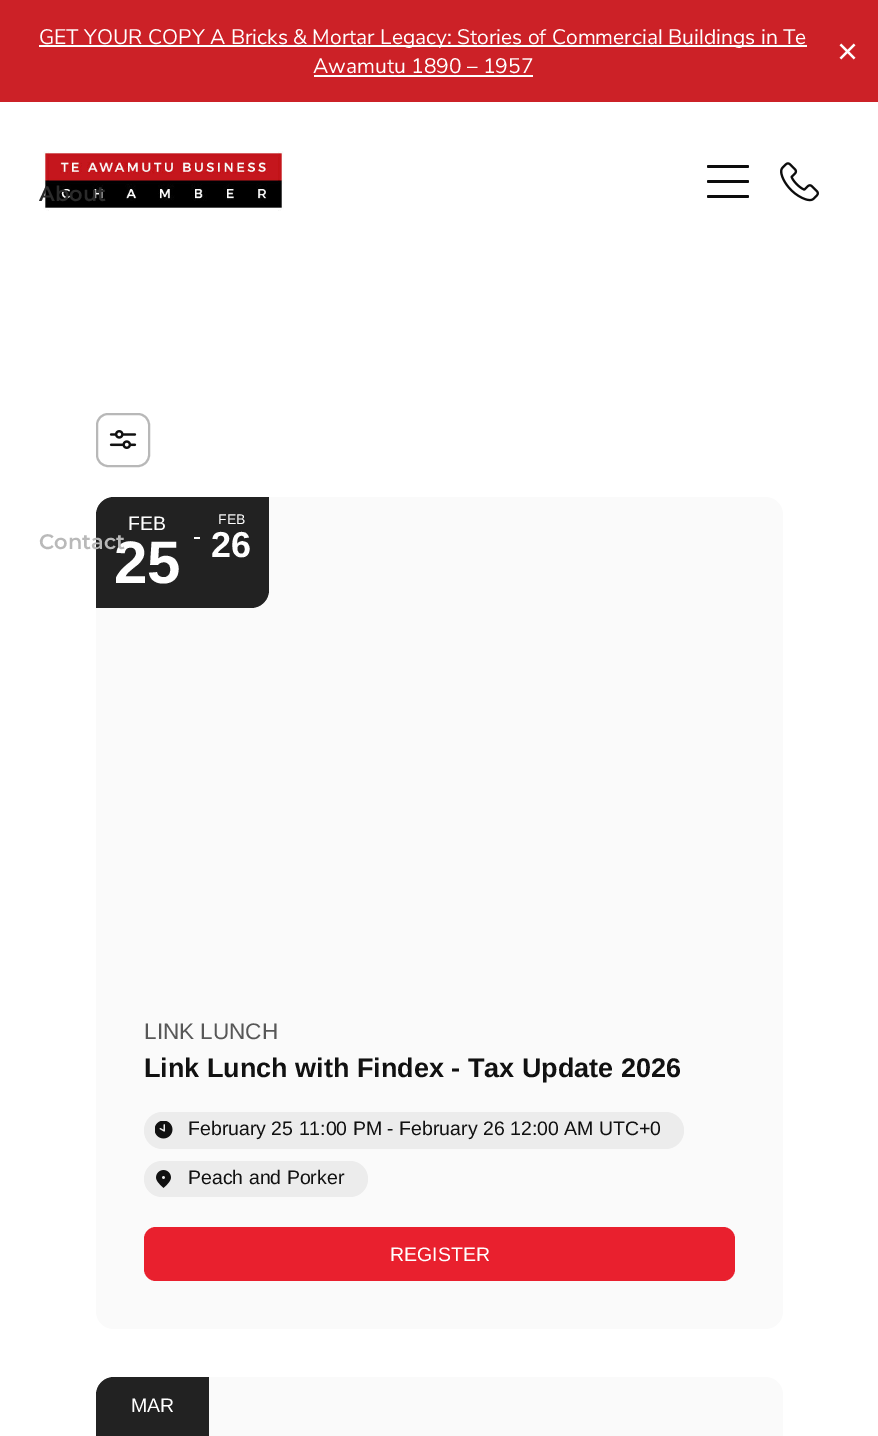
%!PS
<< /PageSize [878 1436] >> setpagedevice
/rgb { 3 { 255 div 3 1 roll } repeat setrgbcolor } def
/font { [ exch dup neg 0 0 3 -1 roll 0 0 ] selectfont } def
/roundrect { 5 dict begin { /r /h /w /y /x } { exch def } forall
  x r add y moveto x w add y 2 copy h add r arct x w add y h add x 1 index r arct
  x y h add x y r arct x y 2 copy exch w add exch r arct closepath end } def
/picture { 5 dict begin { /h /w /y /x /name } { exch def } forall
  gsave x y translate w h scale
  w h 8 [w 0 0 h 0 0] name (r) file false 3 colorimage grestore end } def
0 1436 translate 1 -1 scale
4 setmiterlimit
255 255 255 rgb
0 0 878 1436 rectfill
[
  [0 0 878 102 204 33 39]
  [39 45 768 2 255 255 255]
  [314 75 219 2 255 255 255]
] { aload pop rgb rectfill } forall
(img/1.rgb) 839 43 17 17 picture
(img/2.rgb) 43 151 241 60 picture
12 12 12 rgb
707 180 42 3 1.5 roundrect fill
707 165 42 3 1.5 roundrect fill
707 195 42 3 1.5 roundrect fill
(img/3.rgb) 780 162 39 40 picture
184 184 184 rgb
2 setlinewidth
97 414 52 52 11 roundrect stroke
(img/4.rgb) 109 430 28 19 picture
250 250 250 rgb
96 497 687 832 18 roundrect fill
34 34 34 rgb
114 497 moveto 269 497 lineto 269 590 lineto 269 600 261 608 251 608 curveto 96 608 lineto 96 515 lineto 96 505 104 497 114 497 curveto closepath fill
255 255 255 rgb
194 537 6 2 rectfill
236 236 236 rgb
144 1112 540 37 18.5 roundrect fill
(img/5.rgb) 155 1121 18 18 picture
144 1161 224 36 18 roundrect fill
(img/6.rgb) 156 1170 15 18 picture
233 32 46 rgb
144 1227 591 54 12 roundrect fill
250 250 250 rgb
96 1377 687 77 18 roundrect fill
34 34 34 rgb
114 1377 moveto 209 1377 lineto 209 1436 lineto 209 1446 201 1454 191 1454 curveto 96 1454 lineto 96 1395 lineto 96 1385 104 1377 114 1377 curveto closepath fill
/NunitoSans-Regular 21 font
255 255 255 rgb
39 44 moveto (GET YOUR COPY A Bricks & Mortar Legacy: Stories of Commercial Buildings in Te) show
313 73 moveto (Awamutu 1890 – 1957) show
/Montserrat-SemiBold 21 font
43 43 43 rgb
39 201 moveto (About) show
/LiberationSans-Regular 19.5 font
255 255 255 rgb
128 530 moveto (FEB) show
/LiberationSans-Bold 60 font
114 583 moveto (25) show
/Montserrat-SemiBold 21 font
185 185 185 rgb
39 549 moveto (Contact) show
/LiberationSans-Regular 14 font
255 255 255 rgb
218 524 moveto (FEB) show
/LiberationSans-Bold 36 font
211 557 moveto (26) show
/LiberationSans-Regular 22.5 font
87 87 87 rgb
144 1039 moveto (LINK LUNCH) show
/LiberationSans-Bold 27 font
17 17 17 rgb
144 1077 moveto (Link Lunch with Findex - Tax Update 2026) show
/LiberationSans-Regular 19.5 font
188 1135 moveto (February 25 11:00 PM - February 26 12:00 AM UTC+0) show
188 1184 moveto (Peach and Porker) show
255 255 255 rgb
390 1261 moveto (REGISTER) show
131 1412 moveto (MAR) show
showpage
